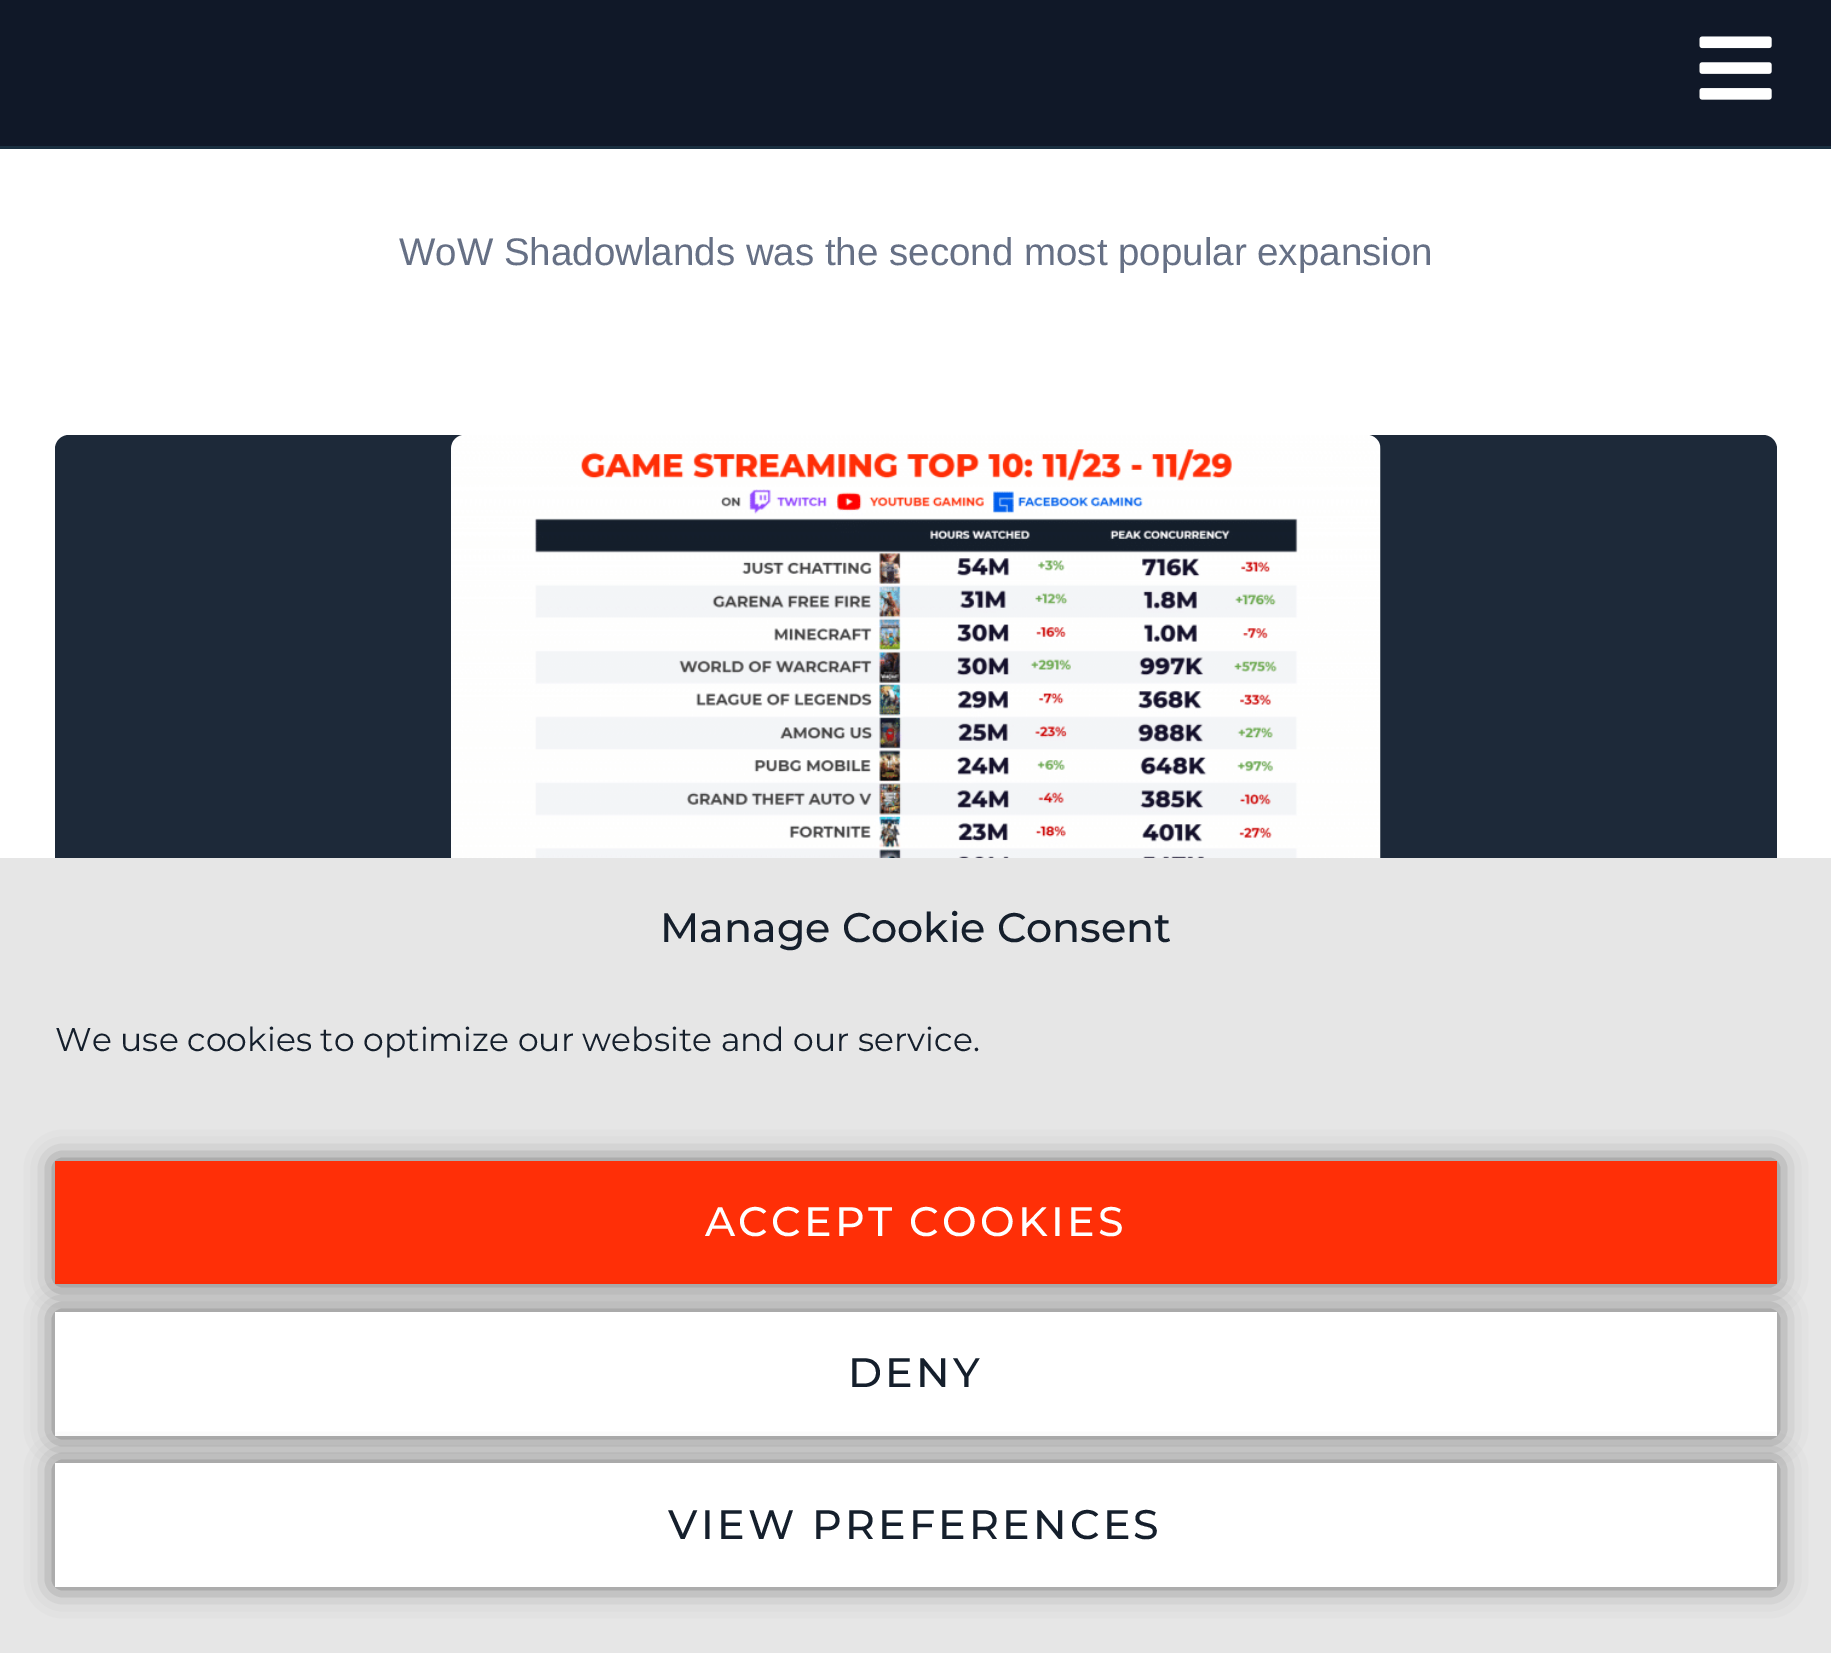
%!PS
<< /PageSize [1831 1653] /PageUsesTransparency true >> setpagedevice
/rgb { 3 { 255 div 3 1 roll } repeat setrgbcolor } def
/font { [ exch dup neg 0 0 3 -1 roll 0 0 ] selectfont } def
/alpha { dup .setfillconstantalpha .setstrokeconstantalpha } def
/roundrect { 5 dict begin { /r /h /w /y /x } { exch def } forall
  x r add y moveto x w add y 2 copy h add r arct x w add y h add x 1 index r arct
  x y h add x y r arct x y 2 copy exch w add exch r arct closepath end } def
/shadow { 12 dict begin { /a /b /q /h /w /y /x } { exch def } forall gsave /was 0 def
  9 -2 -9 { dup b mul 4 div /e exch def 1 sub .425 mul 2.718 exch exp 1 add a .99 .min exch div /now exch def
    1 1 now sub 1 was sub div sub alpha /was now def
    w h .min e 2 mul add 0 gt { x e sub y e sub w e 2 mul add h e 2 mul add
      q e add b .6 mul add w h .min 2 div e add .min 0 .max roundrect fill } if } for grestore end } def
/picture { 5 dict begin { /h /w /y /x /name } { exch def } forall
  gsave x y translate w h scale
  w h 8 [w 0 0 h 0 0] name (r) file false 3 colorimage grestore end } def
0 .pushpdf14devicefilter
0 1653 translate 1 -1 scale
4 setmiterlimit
255 255 255 rgb
0 0 1831 1653 rectfill
16 24 40 rgb
0 0 1831 146 rectfill
26 47 64 rgb
0 146 1831 3 rectfill
(img/1.rgb) 1699 36 73 64 picture
29 41 57 rgb
55 435 1722 522 14 roundrect fill
(img/2.rgb) 451 435 930 423 picture
230 230 230 rgb
0 858 1831 795 rectfill
0 0 0 rgb
55 1161 1722 123 0 14 0.5 shadow
255 47 7 rgb
55 1161 1722 123 rectfill
0 0 0 rgb
55 1312 1722 124 0 14 0.5 shadow
255 255 255 rgb
55 1312 1722 124 rectfill
0 0 0 rgb
55 1463 1722 124 0 14 0.5 shadow
255 255 255 rgb
55 1463 1722 124 rectfill
/LiberationSans-Regular 38.5 font
102 112 133 rgb
399 265 moveto (WoW Shadowlands was the second most popular expansion) show
/Montserrat-Medium 41.25 font
21 31 44 rgb
660 942 moveto (Manage Cookie Consent) show
/Montserrat-Regular 33 font
55 1051 moveto (We use cookies to optimize our website and our service.) show
/Montserrat-Medium 41.25 font
255 255 255 rgb
705 1236 moveto 3.25 0 (ACCEPT COOKIES) ashow
21 31 44 rgb
848 1387 moveto 3.25 0 (DENY) ashow
668 1539 moveto 3.25 0 (VIEW PREFERENCES) ashow
.poppdf14devicefilter showpage
